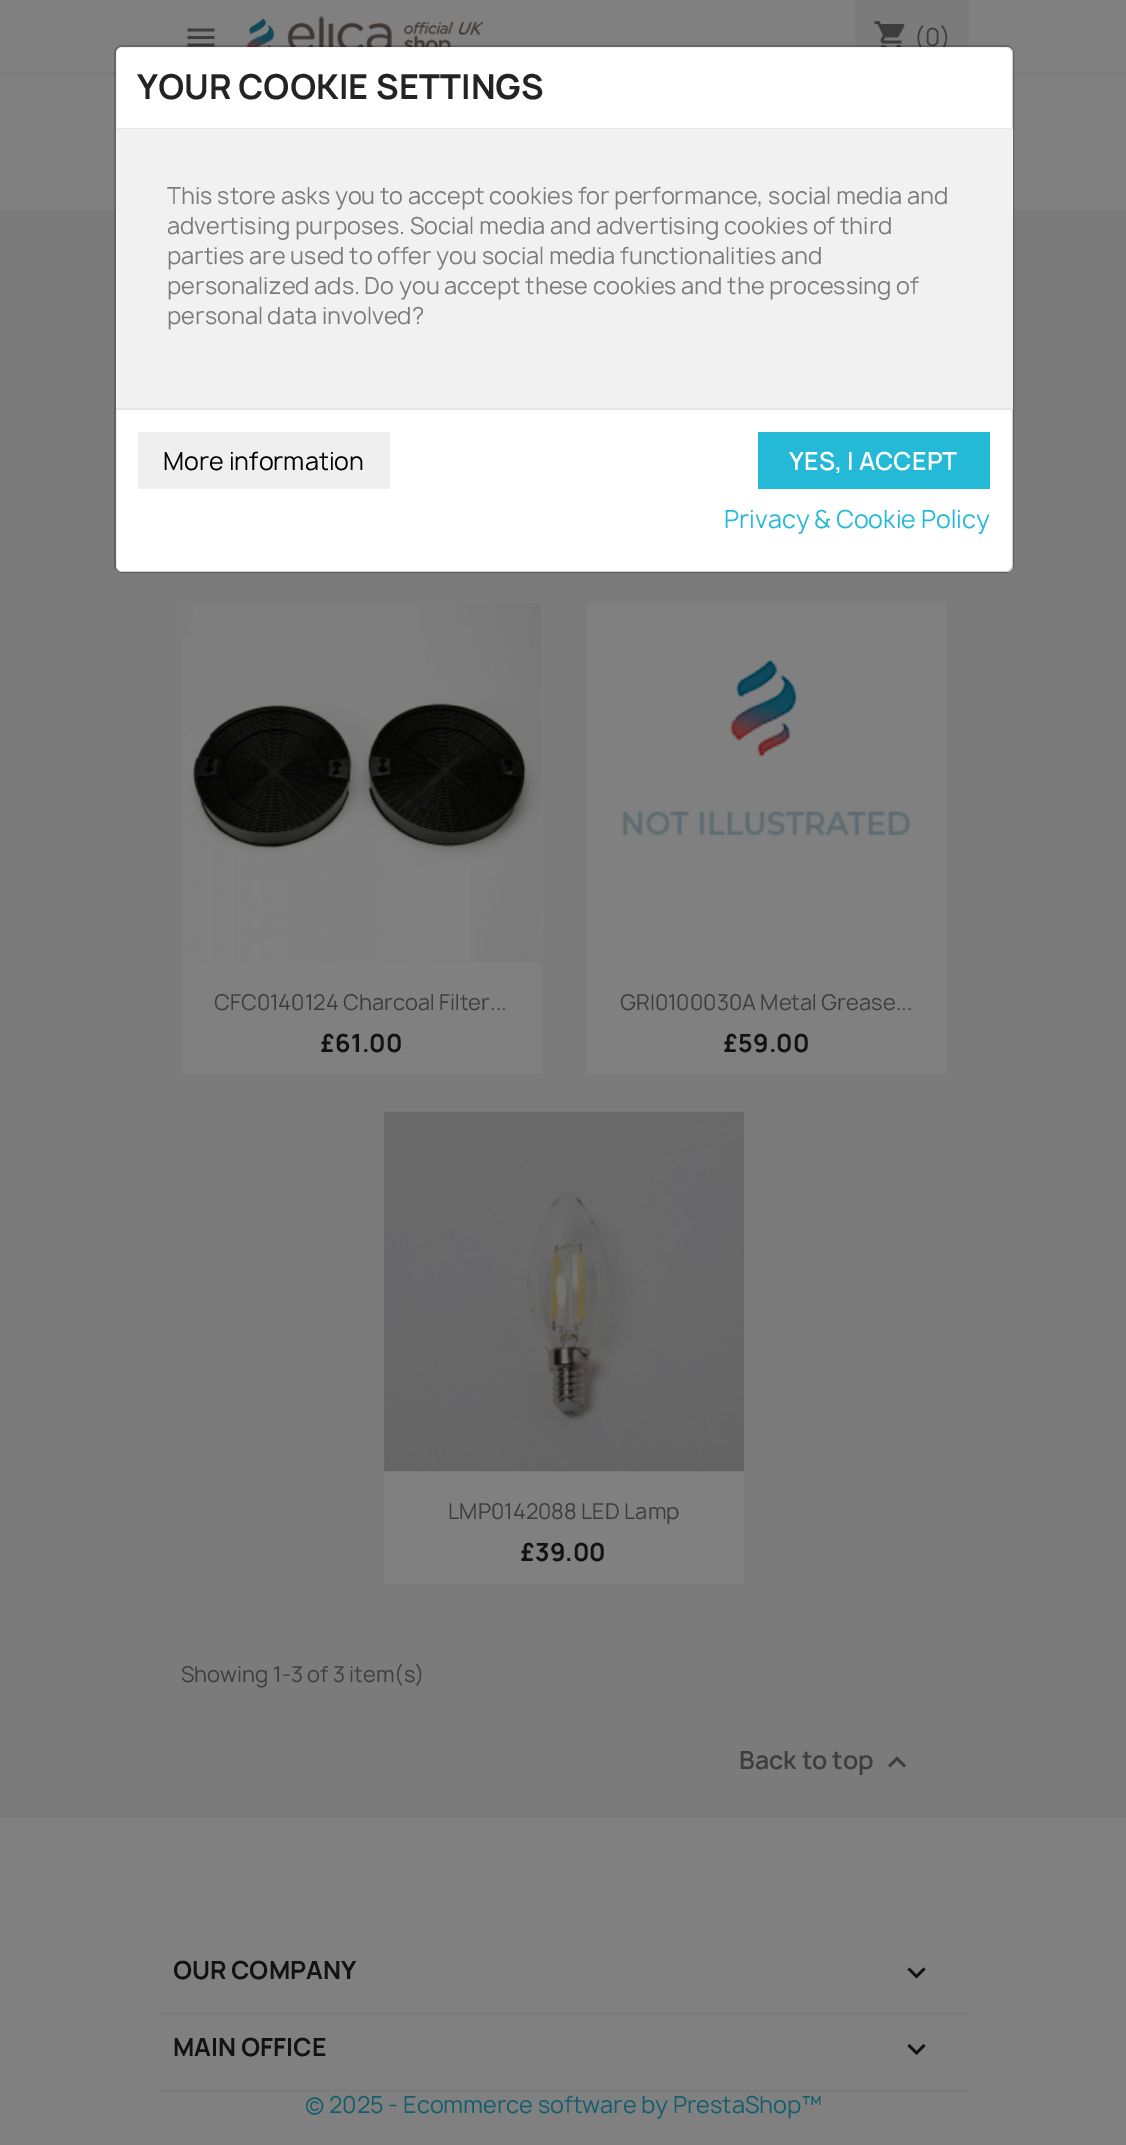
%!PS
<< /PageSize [1126 2145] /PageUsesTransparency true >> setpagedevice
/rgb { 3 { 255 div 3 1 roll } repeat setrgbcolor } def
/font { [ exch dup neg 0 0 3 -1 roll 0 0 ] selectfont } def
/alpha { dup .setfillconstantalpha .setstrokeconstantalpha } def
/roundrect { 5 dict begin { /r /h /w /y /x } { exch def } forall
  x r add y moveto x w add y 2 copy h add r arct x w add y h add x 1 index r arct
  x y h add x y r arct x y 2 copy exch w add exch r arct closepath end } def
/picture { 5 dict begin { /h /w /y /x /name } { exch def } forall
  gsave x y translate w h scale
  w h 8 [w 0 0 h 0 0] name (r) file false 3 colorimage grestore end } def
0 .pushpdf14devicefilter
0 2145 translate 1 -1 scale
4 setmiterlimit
128 128 128 rgb
0 0 1126 2145 rectfill
123 123 123 rgb
0 72 1126 3 rectfill
(img/1.rgb) 187 28 28 19 picture
(img/2.rgb) 246 16 237 31 picture
855 0 114 47 rectfill
(img/3.rgb) 874 21 31 26 picture
159 2013 810 2 rectfill
18 18 18 rgb
909.5 1967.5 moveto 916.5 1974.5 lineto 923.5 1967.5 lineto 925.5 1969.5 lineto 916.5 1978.5 lineto 907.5 1969.5 lineto closepath fill
123 123 123 rgb
159 2090 810 2 rectfill
18 18 18 rgb
909.5 2044 moveto 916.5 2051 lineto 923.5 2044 lineto 925.5 2046 lineto 916.5 2055 lineto 907.5 2046 lineto closepath fill
123 123 123 rgb
0 210 1126 1608 rectfill
128 128 128 rgb
182 603 360 471 rectfill
(img/4.rgb) 182 603 360 360 picture
587 603 360 471 rectfill
(img/5.rgb) 622 660 289 176 picture
384 1471 360 113 rectfill
(img/6.rgb) 384 1111 360 361 picture
61 61 61 rgb
890 1767.5 moveto 888 1765.5 lineto 897 1756.5 lineto 906 1765.5 lineto 904 1767.5 lineto 897 1760.5 lineto closepath fill
/Manrope-Regular 24 font
914 46 moveto (\(0\)) show
255 255 255 rgb
116 47 897 525 6 roundrect fill
0.2 alpha
0 0 0 rgb
2 setlinewidth
115 46 898 526 7 roundrect stroke
1 alpha
229 229 229 rgb
116 128 897 1 rectfill
/Manrope-Bold 33 font
35 35 35 rgb
137 99 moveto (YOUR COOKIE SETTINGS) show
241 241 241 rgb
116 129 897 279 rectfill
/Manrope-Regular 22.5 font
122 122 122 rgb
[
  [(This store asks you to accept cookies for performance, social media and) 167 204]
  [(advertising purposes. Social media and advertising cookies of third) 167 234]
  [(parties are used to offer you social media functionalities and) 167 264]
  [(personalized ads. Do you accept these cookies and the processing of) 167 294]
  [(personal data involved?) 167 324]
] { aload pop moveto show } forall
229 229 229 rgb
116 408 897 2 rectfill
239 239 239 rgb
138 432 252 57 rectfill
/Manrope-Regular 24 font
0 0 0 rgb
163 470 moveto (More information) show
36 185 215 rgb
758 432 232 57 rectfill
/Manrope-SemiBold 24 font
255 255 255 rgb
789 470 moveto (YES, I ACCEPT) show
/Manrope-Regular 24 font
36 185 215 rgb
724 528 moveto (Privacy & Cookie Policy) show
/Manrope-Bold 24 font
18 18 18 rgb
173 1979 moveto (OUR COMPANY) show
173 2056 moveto (MAIN OFFICE) show
/Manrope-Regular 22.5 font
18 93 108 rgb
305 2113 moveto (© 2025 - Ecommerce software by PrestaShop™) show
/Manrope-Regular 21 font
61 61 61 rgb
214 1010 moveto (CFC0140124 Charcoal Filter...) show
/Manrope-Bold 24 font
18 18 18 rgb
320 1052 moveto (£61.00) show
/Manrope-Regular 21 font
61 61 61 rgb
620 1010 moveto (GRI0100030A Metal Grease...) show
/Manrope-Bold 24 font
18 18 18 rgb
723 1052 moveto (£59.00) show
/Manrope-Regular 21 font
61 61 61 rgb
448 1519 moveto (LMP0142088 LED Lamp) show
/Manrope-Bold 24 font
18 18 18 rgb
520 1561 moveto (£39.00) show
/Manrope-Regular 21 font
61 61 61 rgb
181 1682 moveto (Showing 1-3 of 3 item\(s\)) show
/Manrope-SemiBold 24 font
739 1769 moveto (Back to top) show
.poppdf14devicefilter showpage
